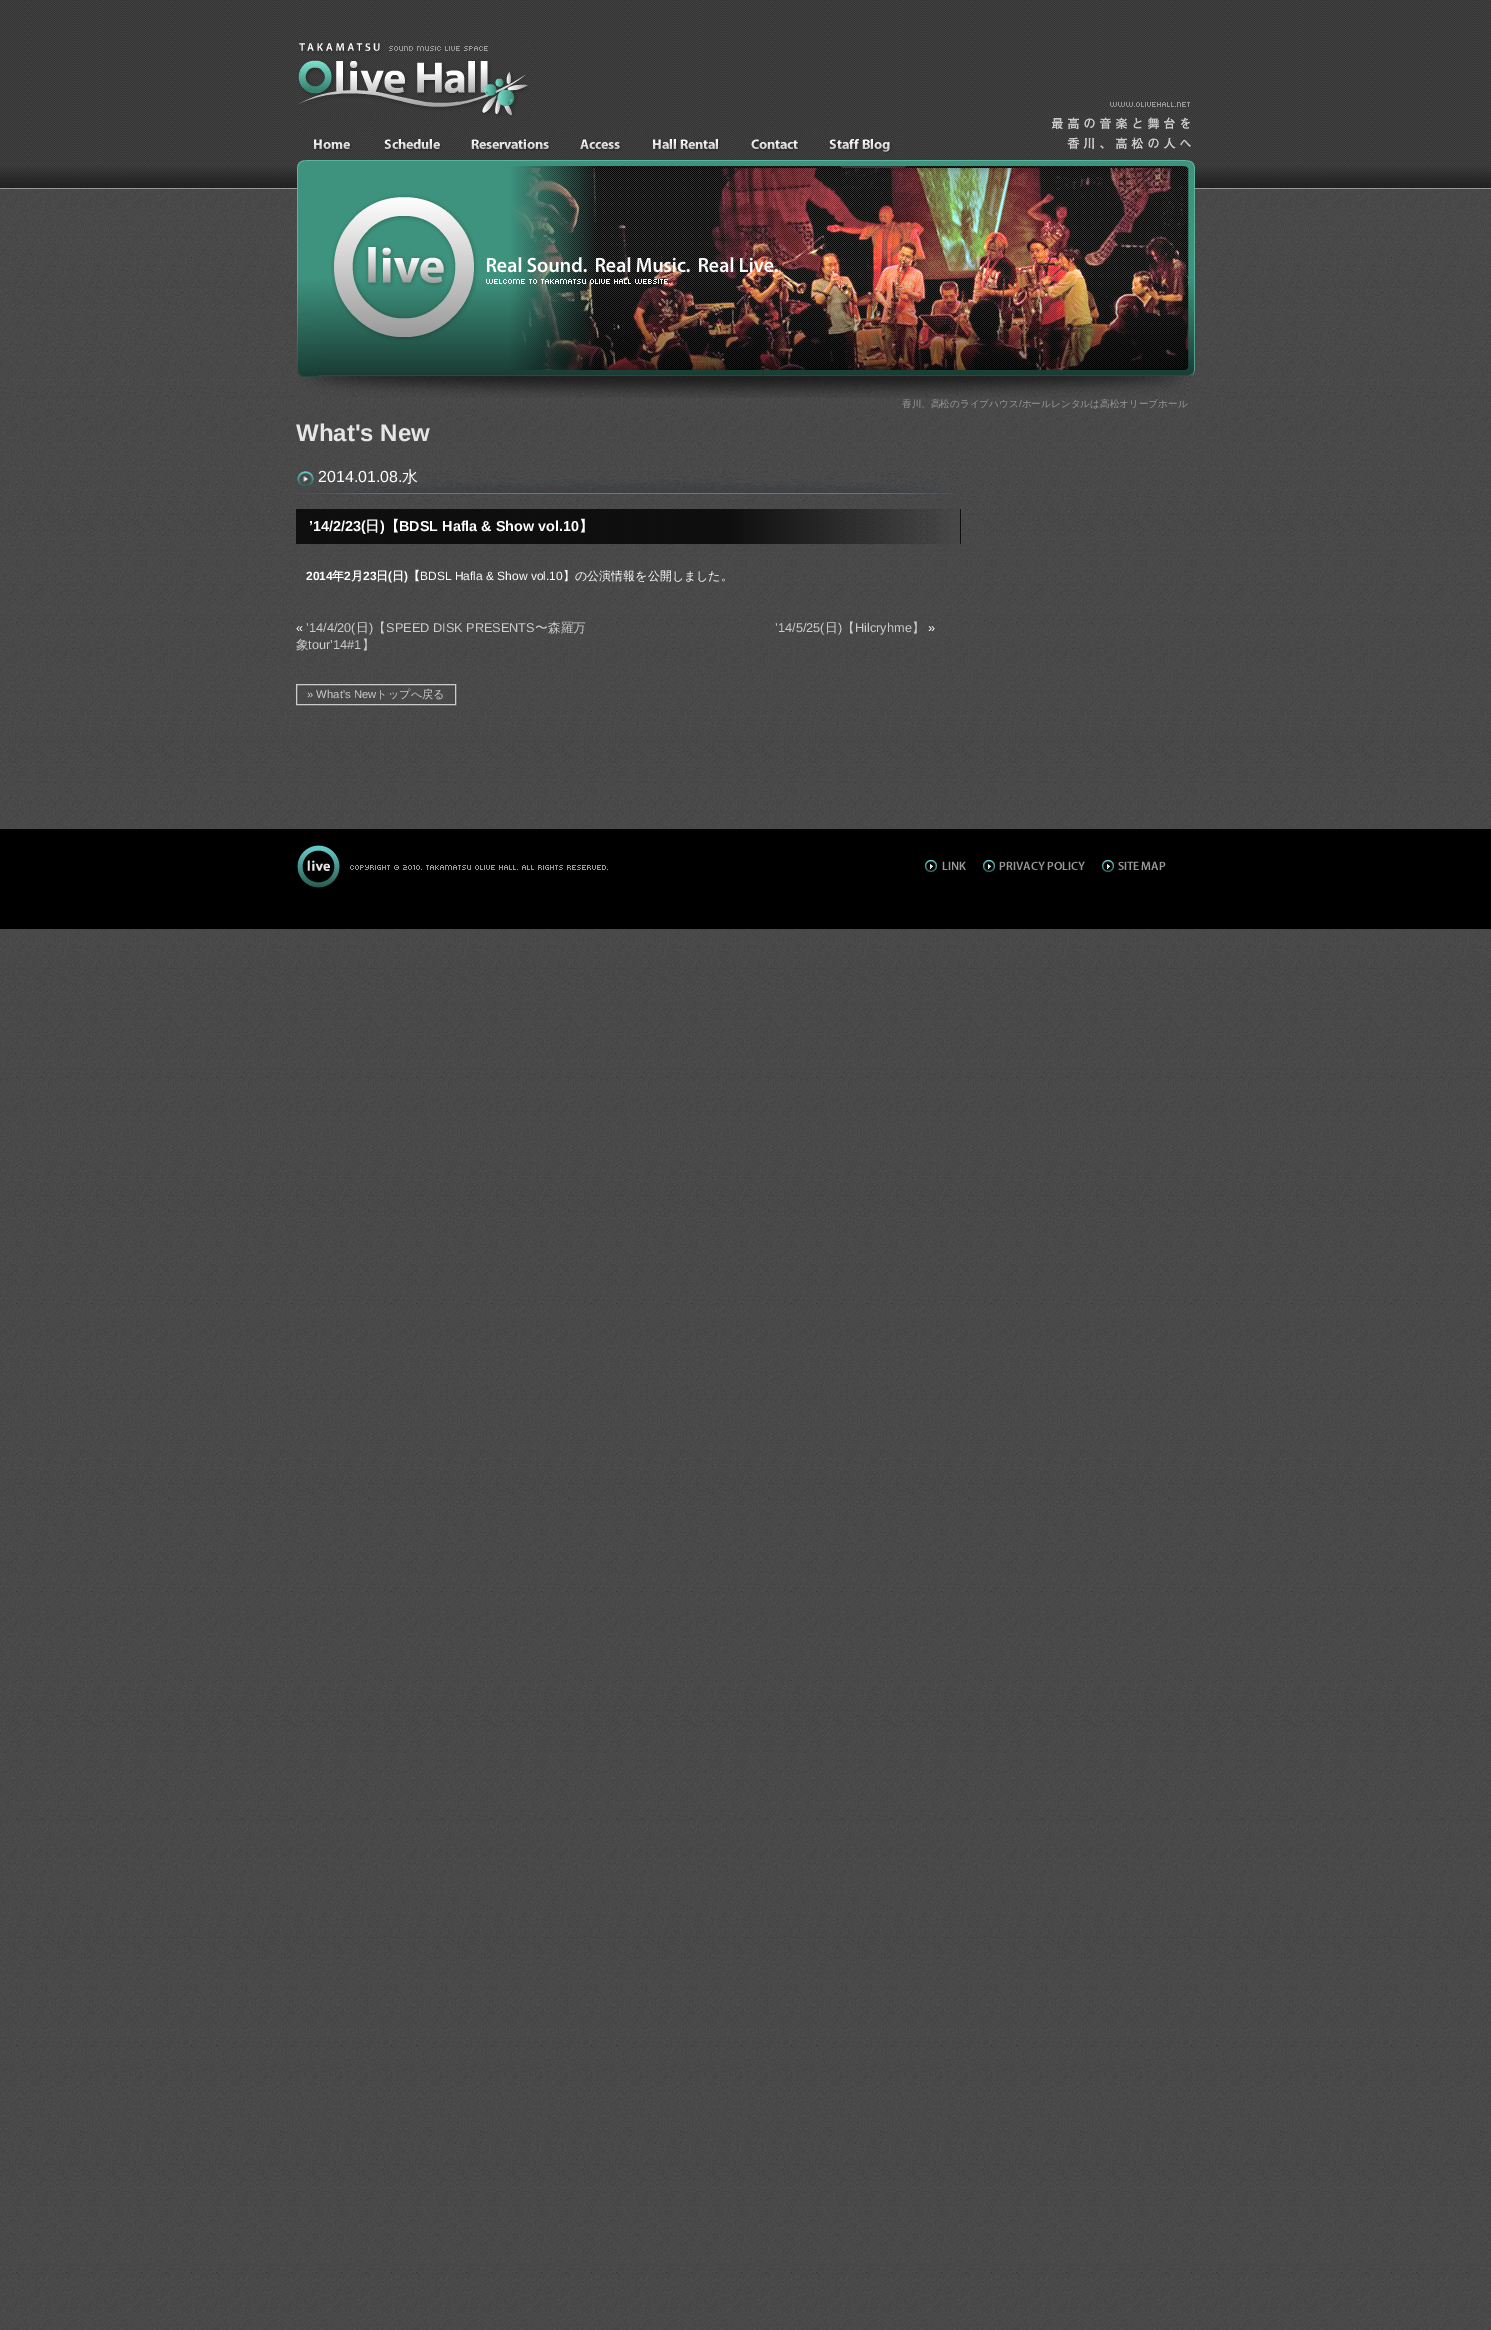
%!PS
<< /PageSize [1491 2330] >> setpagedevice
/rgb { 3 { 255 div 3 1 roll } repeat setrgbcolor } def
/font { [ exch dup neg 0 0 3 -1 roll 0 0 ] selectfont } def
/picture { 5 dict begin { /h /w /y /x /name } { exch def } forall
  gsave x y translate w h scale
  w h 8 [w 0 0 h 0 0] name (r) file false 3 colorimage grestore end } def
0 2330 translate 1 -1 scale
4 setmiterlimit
255 255 255 rgb
0 0 1491 2330 rectfill
(img/1.rgb) 0 0 1491 2330 picture
(img/2.rgb) 297 41 232 76 picture
(img/3.rgb) 1052 102 139 47 picture
(img/4.rgb) 300 131 65 29 picture
(img/5.rgb) 372 131 79 29 picture
(img/6.rgb) 458 131 100 29 picture
(img/7.rgb) 565 131 60 29 picture
(img/8.rgb) 640 131 92 29 picture
(img/9.rgb) 750 131 61 29 picture
(img/10.rgb) 818 131 83 29 picture
(img/11.rgb) 297 160 898 238 picture
(img/12.rgb) 296 471 665 30 picture
(img/13.rgb) 296 470 19 18 picture
(img/14.rgb) 296 509 665 35 picture
204 204 204 rgb
296.5 684.5 159 20 rectstroke
0 0 0 rgb
0 829 1491 100 rectfill
(img/15.rgb) 297 845 43 43 picture
(img/16.rgb) 350 865 258 5 picture
(img/17.rgb) 924 859 42 14 picture
(img/18.rgb) 982 859 103 14 picture
(img/19.rgb) 1101 859 65 14 picture
/WenQuanYiZenHei-Medium 9.6 font
153 153 153 rgb
902 407 moveto (香川、高松のライブハウス ホールレンタルは高松オリーブホール) show
/LiberationSans-Regular 9.6 font
1019 407 moveto (/) show
/LiberationSans-Bold 24 font
230 230 230 rgb
296 441 moveto (What's New) show
/LiberationSans-Regular 16 font
255 255 255 rgb
318 482 moveto (2014.01.08.) show
/WenQuanYiZenHei-Medium 16 font
402 482 moveto (水) show
/LiberationSans-Bold 14.4 font
309 531 moveto (’14/2/23\() show
/WenQuanYiZenHei-Bold 14.4 font
365 531 moveto (日) show
/LiberationSans-Bold 14.4 font
380 531 moveto (\)) show
/WenQuanYiZenHei-Bold 14.4 font
385 531 moveto (【) show
/LiberationSans-Bold 14.4 font
399 531 moveto (BDSL Hafla & Show vol.10) show
/WenQuanYiZenHei-Bold 14.4 font
579 531 moveto (】) show
/LiberationSans-Bold 12 font
306 580 moveto (2014) show
/WenQuanYiZenHei-Bold 12 font
332 580 moveto (年) show
/LiberationSans-Bold 12 font
344 580 moveto (2) show
/WenQuanYiZenHei-Bold 12 font
351 580 moveto (月) show
/LiberationSans-Bold 12 font
363 580 moveto (23) show
/WenQuanYiZenHei-Bold 12 font
376 580 moveto (日) show
/LiberationSans-Bold 12 font
388 580 moveto (\() show
/WenQuanYiZenHei-Bold 12 font
392 580 moveto (日) show
/LiberationSans-Bold 12 font
404 580 moveto (\)) show
/WenQuanYiZenHei-Bold 12 font
408 580 moveto (【) show
/LiberationSans-Regular 12 font
420 580 moveto (BDSL Hafla & Show vol.10) show
/WenQuanYiZenHei-Medium 12 font
563 580 moveto (】の公演情報を公開しました。) show
/LiberationSans-Regular 12.75 font
296 632 moveto («) show
204 204 204 rgb
306 632 moveto (’14/4/20\() show
/WenQuanYiZenHei-Medium 12.75 font
356 632 moveto (日) show
/LiberationSans-Regular 12.75 font
369 632 moveto (\)) show
/WenQuanYiZenHei-Medium 12.75 font
373 632 moveto (【) show
/LiberationSans-Regular 12.75 font
386 632 moveto (SPEED DISK PRESENTS) show
/WenQuanYiZenHei-Medium 12.75 font
535 632 moveto (〜森羅万) show
296 649 moveto (象) show
/LiberationSans-Regular 12.75 font
308 649 moveto (tour’14#1) show
/WenQuanYiZenHei-Medium 12.75 font
362 649 moveto (】) show
/LiberationSans-Regular 12.75 font
775 632 moveto (’14/5/25\() show
/WenQuanYiZenHei-Medium 12.75 font
825 632 moveto (日) show
/LiberationSans-Regular 12.75 font
838 632 moveto (\)) show
/WenQuanYiZenHei-Medium 12.75 font
842 632 moveto (【) show
/LiberationSans-Regular 12.75 font
855 632 moveto (Hilcryhme) show
/WenQuanYiZenHei-Medium 12.75 font
912 632 moveto (】) show
/LiberationSans-Regular 12.75 font
255 255 255 rgb
928 632 moveto (») show
/LiberationSans-Regular 11.25 font
204 204 204 rgb
307 698 moveto (» What's New) show
/WenQuanYiZenHei-Medium 11.25 font
376 698 moveto (トップへ戻る) show
showpage
